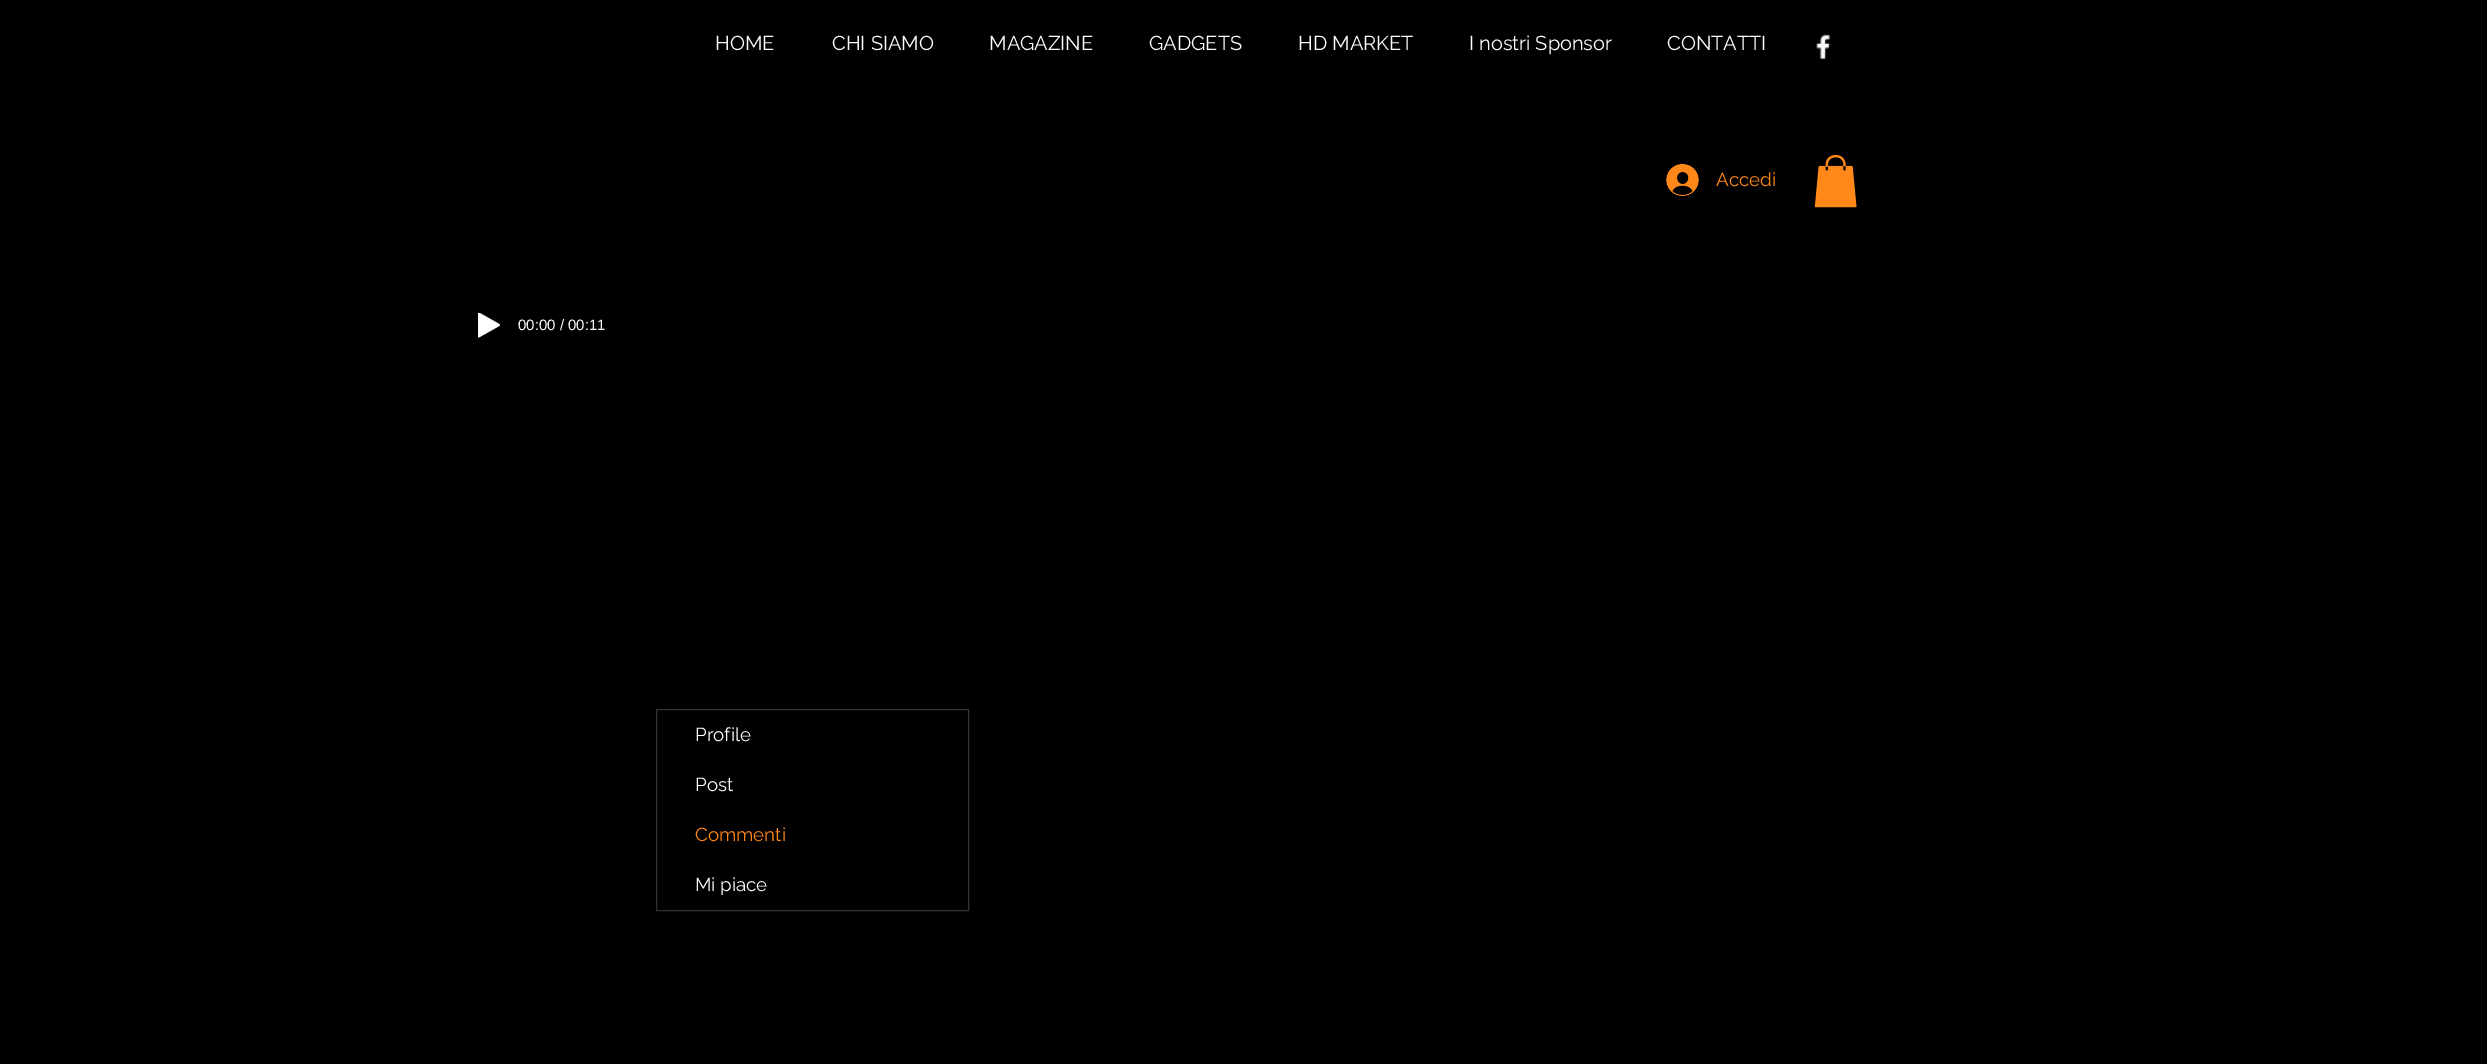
%!PS
<< /PageSize [2487 1064] >> setpagedevice
/rgb { 3 { 255 div 3 1 roll } repeat setrgbcolor } def
/font { [ exch dup neg 0 0 3 -1 roll 0 0 ] selectfont } def
/picture { 5 dict begin { /h /w /y /x /name } { exch def } forall
  gsave x y translate w h scale
  w h 8 [w 0 0 h 0 0] name (r) file false 3 colorimage grestore end } def
0 1064 translate 1 -1 scale
4 setmiterlimit
0 0 0 rgb
0 0 2487 1064 rectfill
(img/1.rgb) 1816 34 15 25 picture
(img/2.rgb) 1666 164 33 32 picture
(img/3.rgb) 1814 155 43 53 picture
(img/4.rgb) 478 313 22 25 picture
51 51 51 rgb
656.5 709.5 312 201 rectstroke
/Raleway-Regular 20 font
255 255 255 rgb
[
  [(HOME) 715 50]
  [(CHI SIAMO) 832 50]
  [(MAGAZINE) 989 50]
  [(GADGETS) 1149 50]
  [(HD MARKET) 1298 50]
  [(I nostri Sponsor) 1469 50]
  [(CONTATTI) 1667 50]
] { aload pop moveto show } forall
/Raleway-Regular 18.75 font
255 136 25 rgb
1716 186 moveto (Accedi) show
/LiberationSans-Regular 15 font
255 255 255 rgb
518 330 moveto (00:00 / 00:11) show
/Raleway-Regular 18.75 font
695 741 moveto (Profile) show
695 791 moveto (Post) show
255 136 25 rgb
695 841 moveto (Commenti) show
255 255 255 rgb
695 891 moveto (Mi piace) show
showpage
